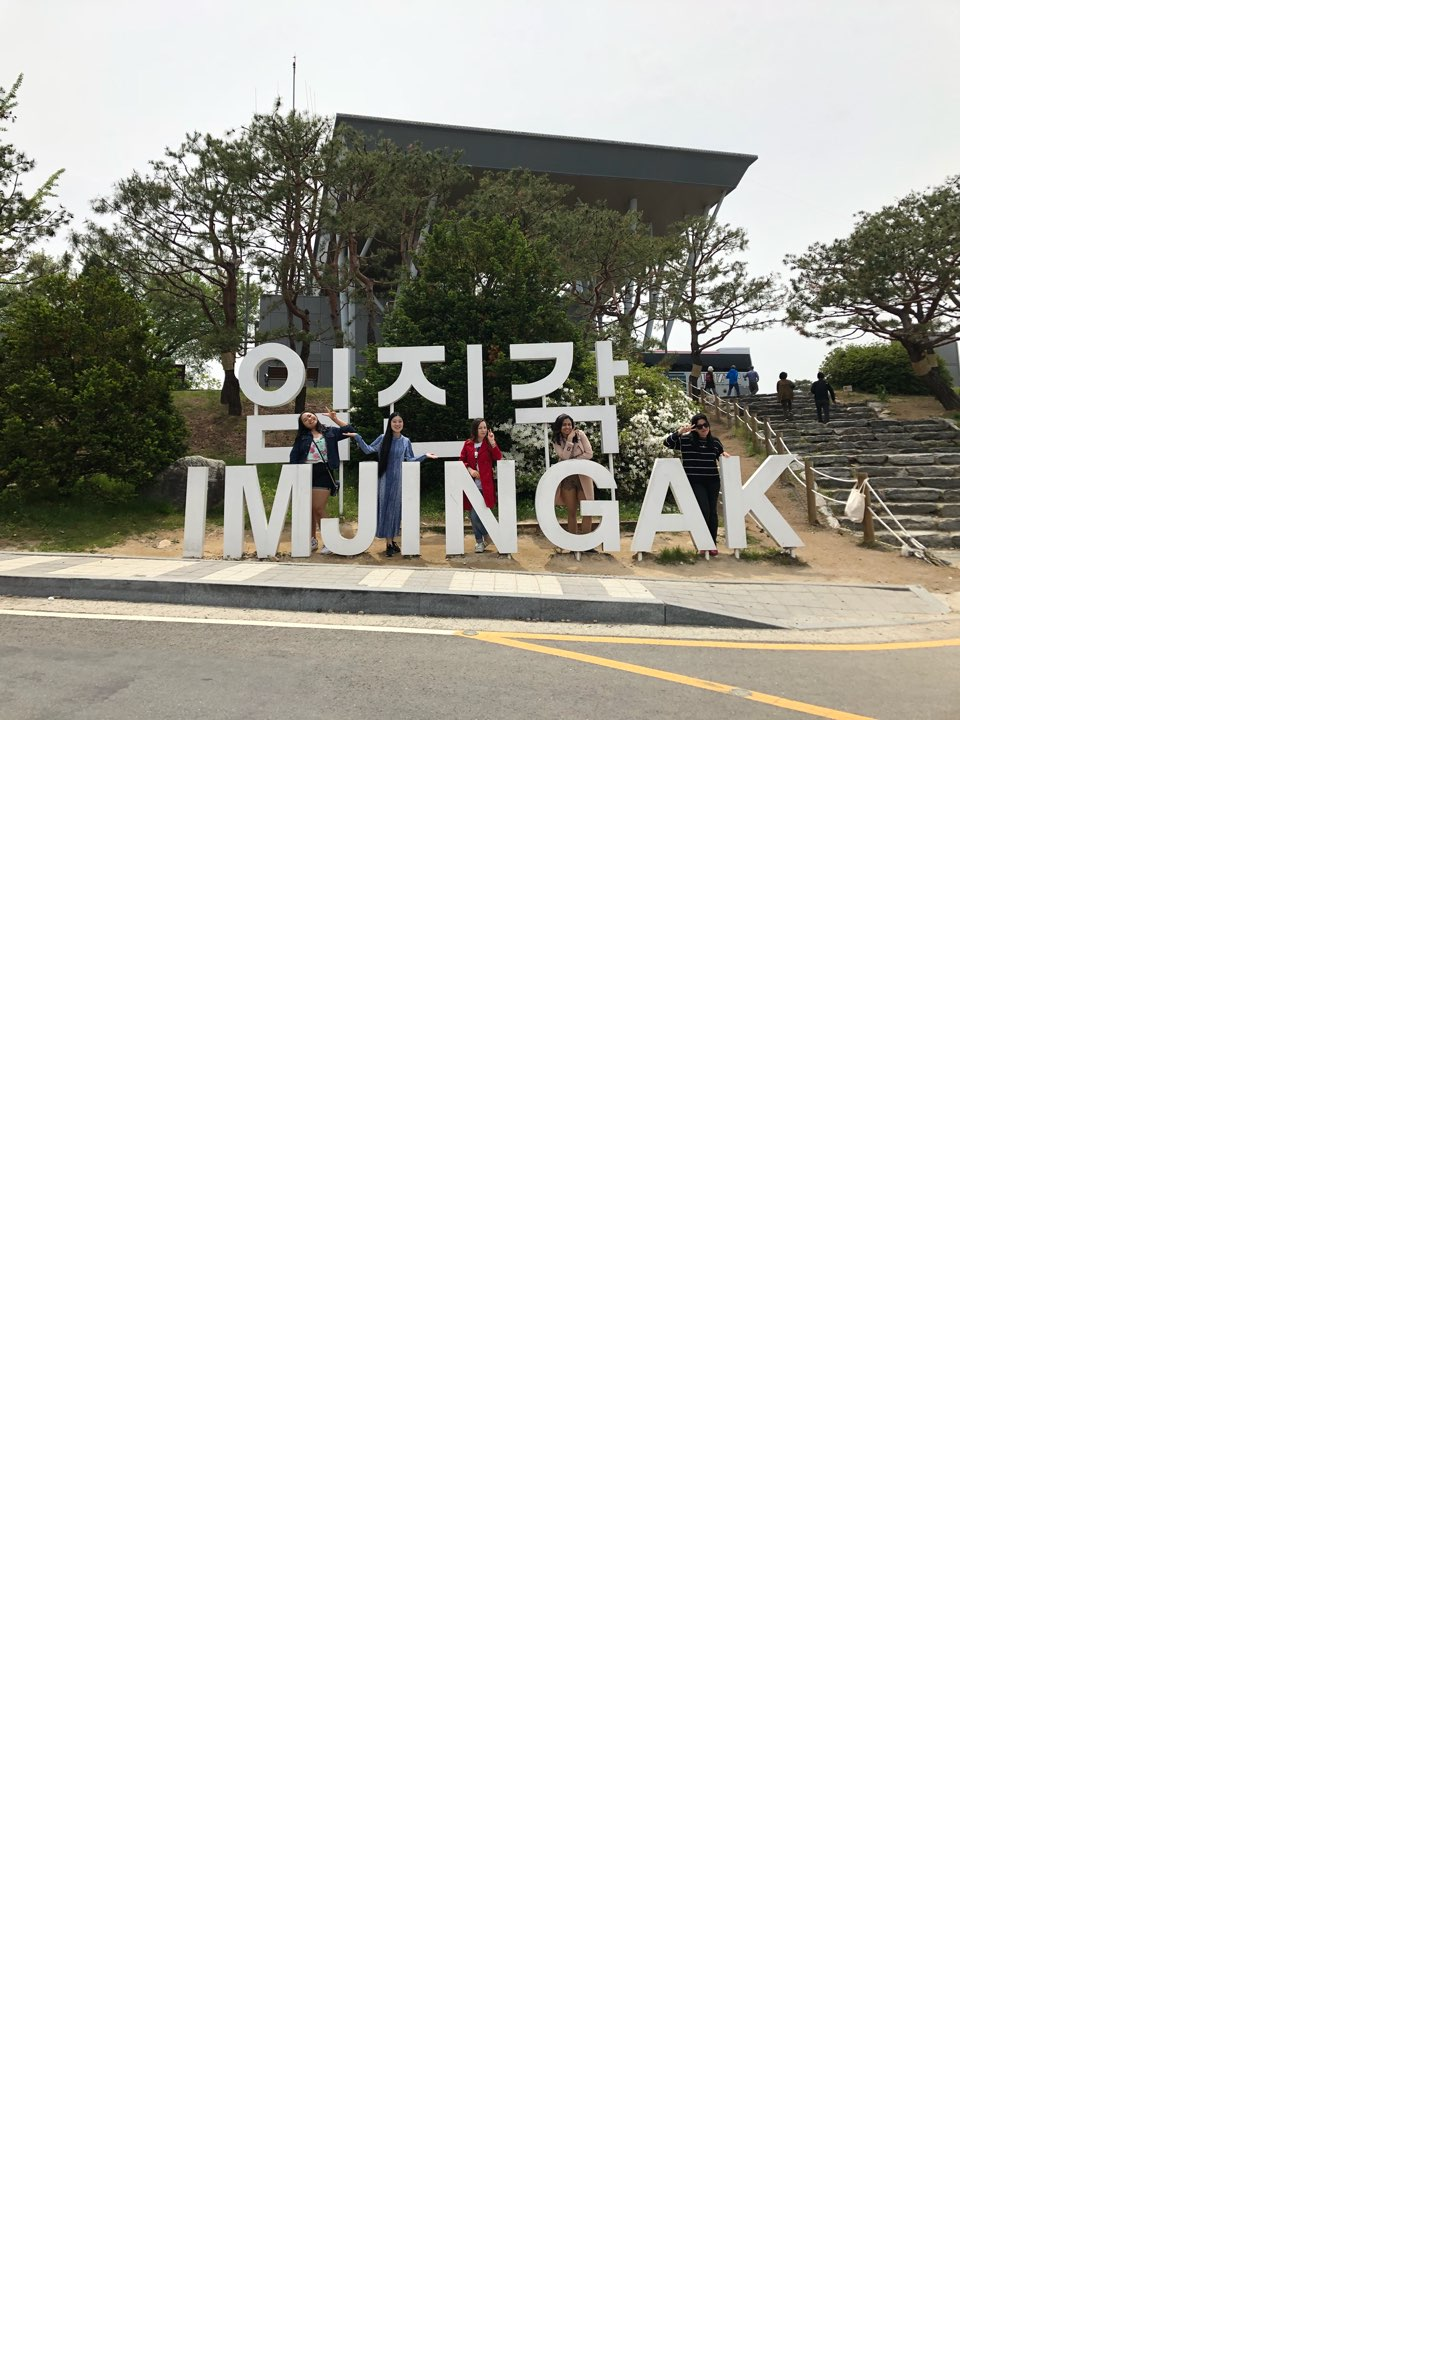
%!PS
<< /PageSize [1438 2362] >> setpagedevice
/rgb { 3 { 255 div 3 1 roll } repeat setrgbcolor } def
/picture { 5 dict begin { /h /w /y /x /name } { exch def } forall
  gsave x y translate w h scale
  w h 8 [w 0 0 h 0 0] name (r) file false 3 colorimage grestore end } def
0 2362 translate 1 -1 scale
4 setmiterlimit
255 255 255 rgb
0 0 1438 2362 rectfill
(img/1.rgb) 0 0 960 720 picture
showpage
